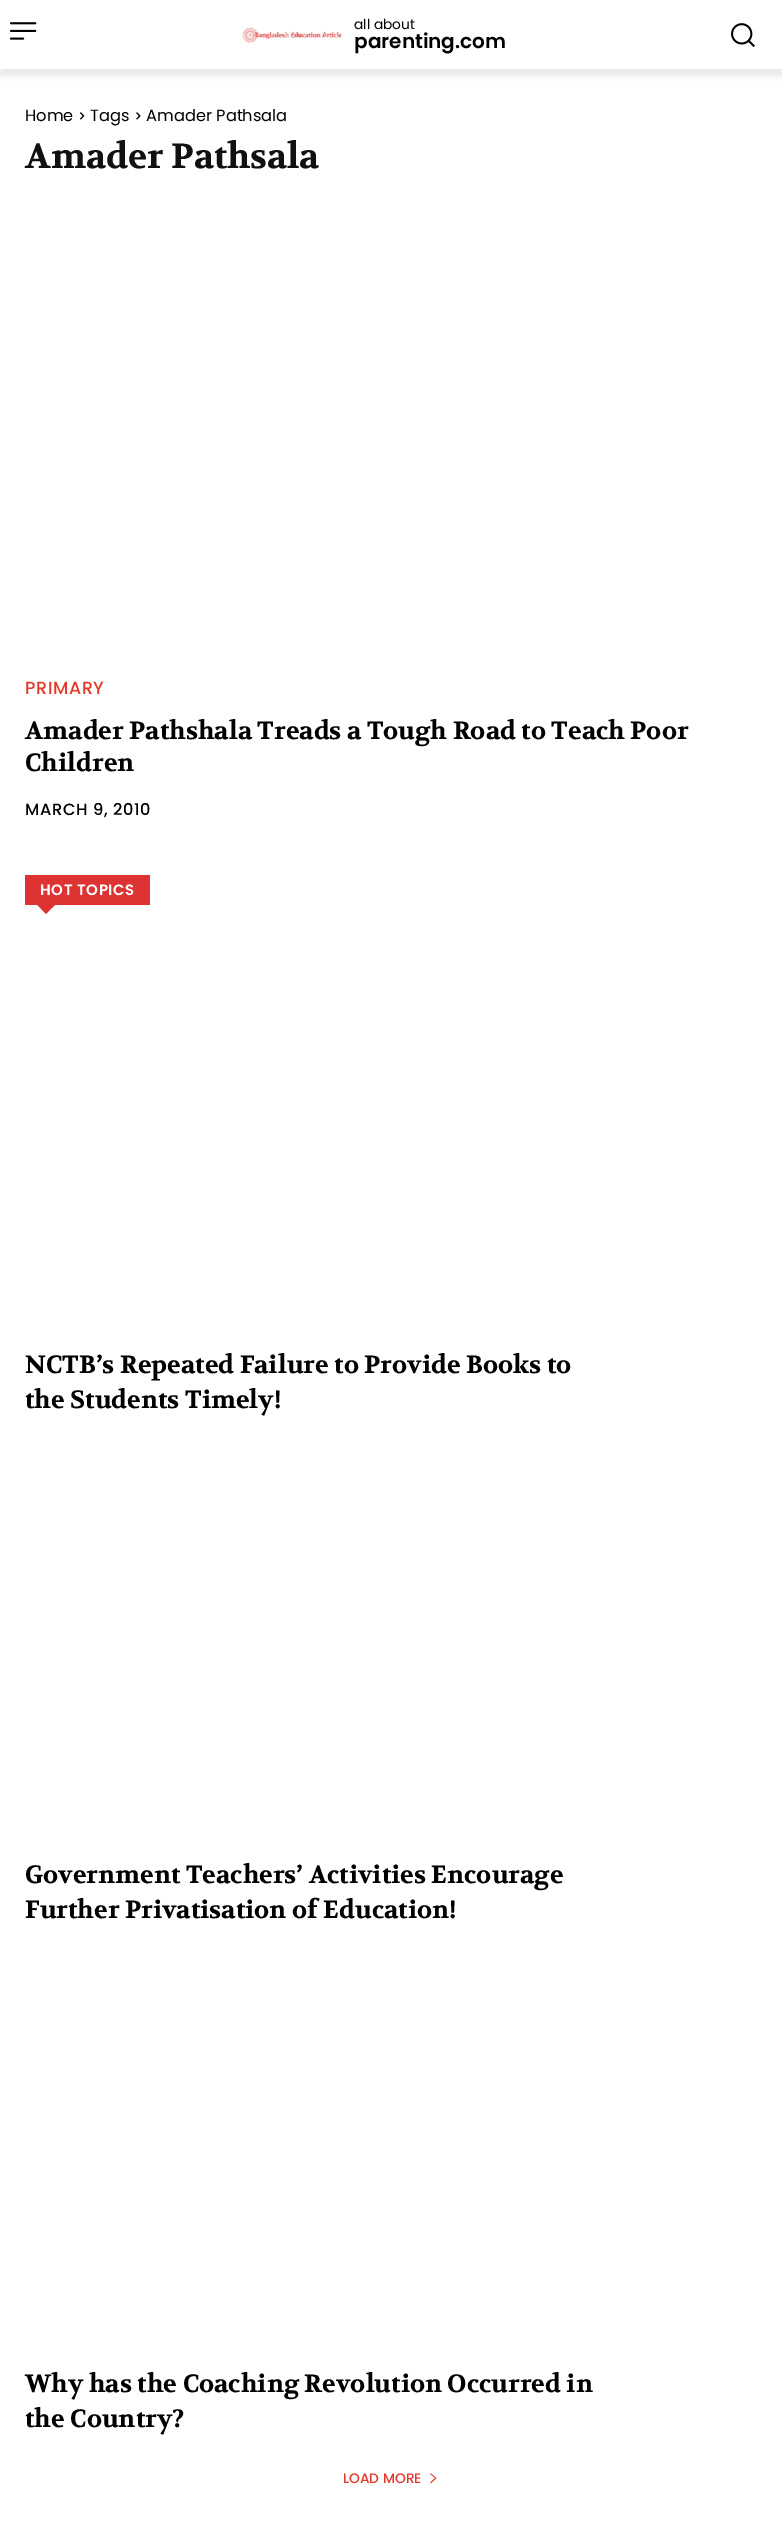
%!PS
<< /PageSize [782 2539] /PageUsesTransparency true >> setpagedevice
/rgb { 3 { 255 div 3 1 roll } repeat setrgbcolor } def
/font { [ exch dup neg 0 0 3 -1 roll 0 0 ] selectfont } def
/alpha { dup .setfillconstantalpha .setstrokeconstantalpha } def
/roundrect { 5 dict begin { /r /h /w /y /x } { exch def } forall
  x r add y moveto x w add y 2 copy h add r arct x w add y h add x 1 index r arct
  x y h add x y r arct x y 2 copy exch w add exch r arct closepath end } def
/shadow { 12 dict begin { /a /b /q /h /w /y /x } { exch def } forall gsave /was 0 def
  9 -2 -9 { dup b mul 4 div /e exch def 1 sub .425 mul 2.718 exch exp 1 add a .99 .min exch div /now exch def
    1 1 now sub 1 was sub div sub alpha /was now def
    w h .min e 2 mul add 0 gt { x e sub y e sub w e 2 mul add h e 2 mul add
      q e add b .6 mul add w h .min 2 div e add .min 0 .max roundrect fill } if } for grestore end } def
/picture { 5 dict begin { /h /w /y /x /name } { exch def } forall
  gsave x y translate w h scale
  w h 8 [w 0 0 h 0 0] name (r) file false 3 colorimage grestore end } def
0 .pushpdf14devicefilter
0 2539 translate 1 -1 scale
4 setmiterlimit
255 255 255 rgb
0 0 782 2539 rectfill
(img/1.rgb) 9 22 28 18 picture
(img/2.rgb) 242 27 100 16 picture
(img/3.rgb) 731 23 24 25 picture
gsave
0 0 moveto 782 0 lineto 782 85 lineto 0 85 lineto closepath 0 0 moveto 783 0 lineto 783 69 lineto 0 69 lineto closepath eoclip newpath
0 0 0 rgb
0 8 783 68 0 2.5 0.08 shadow
grestore
(img/4.rgb) 80 112 5 8 picture
(img/5.rgb) 136 112 5 8 picture
221 51 51 rgb
25 875 125 30 rectfill
37.5 905 moveto 55 905 lineto 46 914 lineto closepath fill
(img/6.rgb) 430 2473 7 11 picture
/Poppins-Regular 13.75 font
0 0 0 rgb
354 29 moveto (all about) show
/Poppins-SemiBold 20 font
354 48 moveto (parenting.com) show
/Poppins-Regular 16.25 font
[
  [(Home) 25 121]
  [(Tags) 90 121]
  [(Amader Pathsala) 146 121]
] { aload pop moveto show } forall
/Volkhov-Bold 35 font
17 17 17 rgb
25 168 moveto (Amader Pathsala) show
/Poppins-Medium 17.5 font
227 56 43 rgb
25 694 moveto 0.6 0 (PRIMARY) ashow
/Volkhov-Bold 25 font
0 0 0 rgb
25 739 moveto (Amader Pathshala Treads a Tough Road to Teach Poor) show
25 771 moveto (Children) show
/Poppins-Medium 16.25 font
25 815 moveto 0.6 0 (MARCH 9, 2010) ashow
/Poppins-SemiBold 15 font
255 255 255 rgb
40 895 moveto 0.6 0 (HOT TOPICS) ashow
/Volkhov-Bold 25 font
0 0 0 rgb
[
  [(NCTB’s Repeated Failure to Provide Books to) 25 1373]
  [(the Students Timely!) 25 1408]
  [(Government Teachers’ Activities Encourage) 25 1883]
  [(Further Privatisation of Education!) 25 1918]
  [(Why has the Coaching Revolution Occurred in) 25 2392]
  [(the Country?) 25 2427]
] { aload pop moveto show } forall
/Poppins-Medium 13.75 font
227 56 43 rgb
343 2483 moveto (LOAD MORE) show
.poppdf14devicefilter showpage
